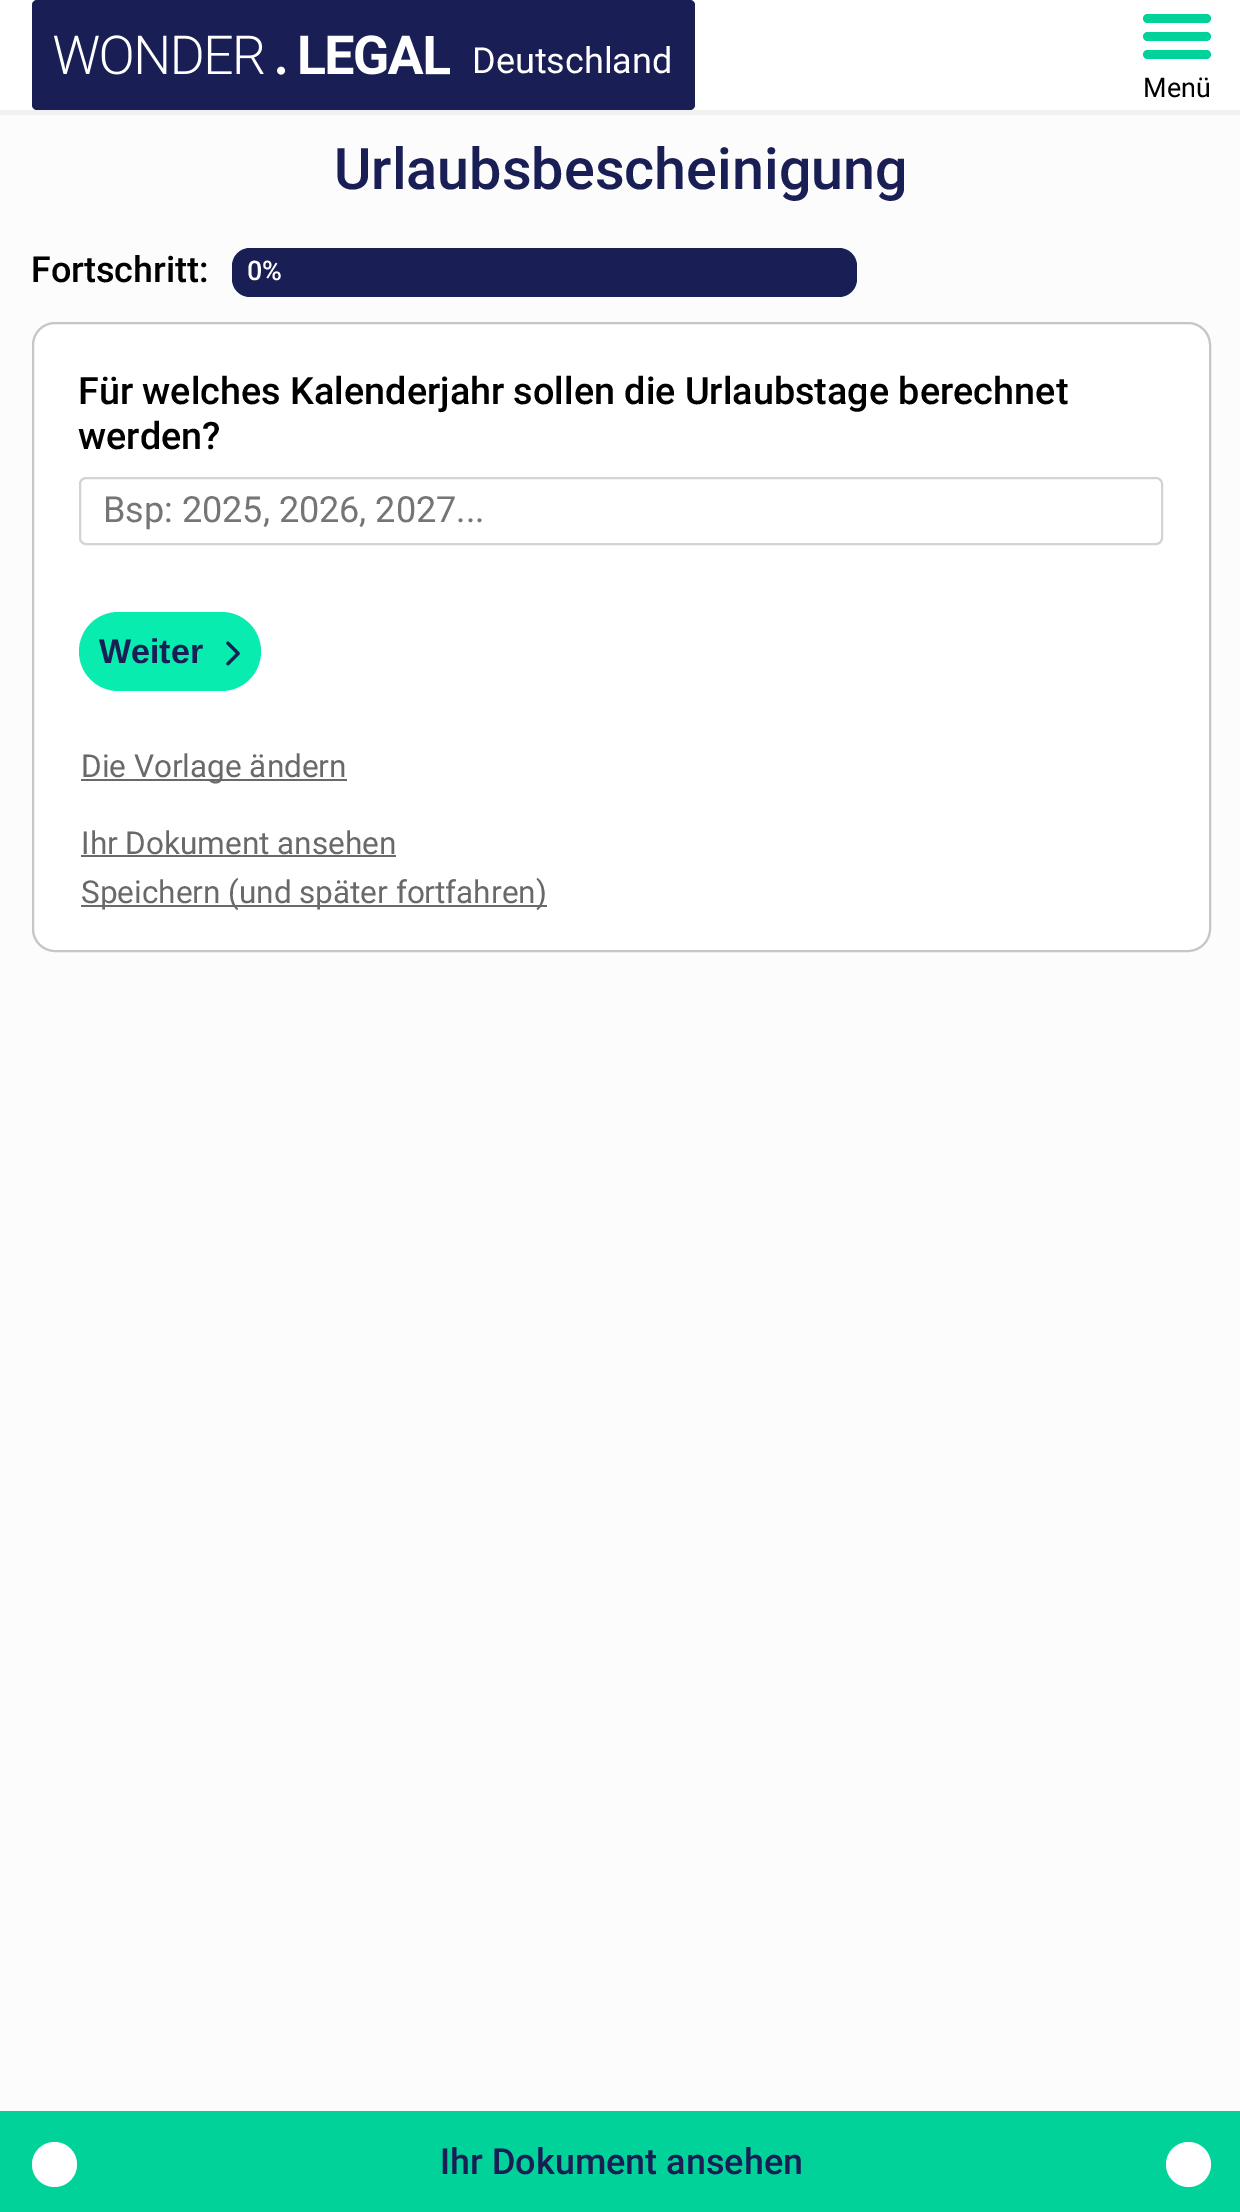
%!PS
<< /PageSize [1240 2212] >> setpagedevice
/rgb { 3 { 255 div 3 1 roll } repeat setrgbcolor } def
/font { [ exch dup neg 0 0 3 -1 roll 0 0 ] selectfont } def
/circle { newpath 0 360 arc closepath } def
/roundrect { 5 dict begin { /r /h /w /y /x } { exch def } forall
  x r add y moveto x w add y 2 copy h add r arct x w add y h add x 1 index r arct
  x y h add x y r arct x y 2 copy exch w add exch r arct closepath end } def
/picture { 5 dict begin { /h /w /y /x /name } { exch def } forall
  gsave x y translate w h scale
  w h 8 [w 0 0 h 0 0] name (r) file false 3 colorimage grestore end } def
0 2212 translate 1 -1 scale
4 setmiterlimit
252 252 252 rgb
0 0 1240 2212 rectfill
255 255 255 rgb
0 0 1240 110 rectfill
241 241 241 rgb
0 110 1240 5 rectfill
25 30 85 rgb
32 0 663 110 5 roundrect fill
(img/1.rgb) 54 35 396 40 picture
1 210 154 rgb
1143 14 68 9 4.5 roundrect fill
1143 32 68 9 4.5 roundrect fill
1143 50 68 9 4.5 roundrect fill
25 30 85 rgb
232 248 625 49 18 roundrect fill
255 255 255 rgb
33 323 1177 628 22 roundrect gsave fill grestore
198 198 198 rgb
2 setlinewidth
stroke
211 211 211 rgb
80 478 1082 66 6 roundrect stroke
8 236 175 rgb
79 612 182 79 39.5 roundrect fill
(img/2.rgb) 226 641 14 25 picture
[
  [81 779 266 2 107 104 104]
  [81 855 315 2 107 104 104]
  [81 905 466 2 107 104 104]
  [0 2111 1240 101 1 210 154]
] { aload pop rgb rectfill } forall
255 255 255 rgb
54.5 2164.5 22.5 circle fill
1188.5 2164.5 22.5 circle fill
/Roboto-Regular 36 font
472 73 moveto (Deutschland) show
/Roboto-Regular 27 font
0 0 0 rgb
1143 97 moveto (Menü) show
/Roboto-Medium 57.5 font
25 30 85 rgb
334 189 moveto (Urlaubsbescheinigung) show
/Roboto-Medium 36 font
0 0 0 rgb
31 282 moveto (Fortschritt:) show
/Roboto-Medium 27 font
255 255 255 rgb
247 280 moveto (0%) show
/Roboto-Medium 37.8 font
0 0 0 rgb
78 404 moveto -0.25 0 32 (Für welches Kalenderjahr sollen die Urlaubstage berechnet) widthshow
78 449 moveto (werden?) show
/Roboto-Regular 36 font
117 117 117 rgb
103 522 moveto (Bsp: 2025, 2026, 2027...) show
/LiberationSans-Bold 34 font
25 30 85 rgb
99 663 moveto (Weiter) show
/Roboto-Regular 31.5 font
107 104 104 rgb
[
  [(Die Vorlage ändern) 81 777]
  [(Ihr Dokument ansehen) 81 854]
  [(Speichern \(und später fortfahren\)) 81 903]
] { aload pop moveto show } forall
/Roboto-Medium 36 font
25 30 85 rgb
440 2174 moveto (Ihr Dokument ansehen) show
showpage
